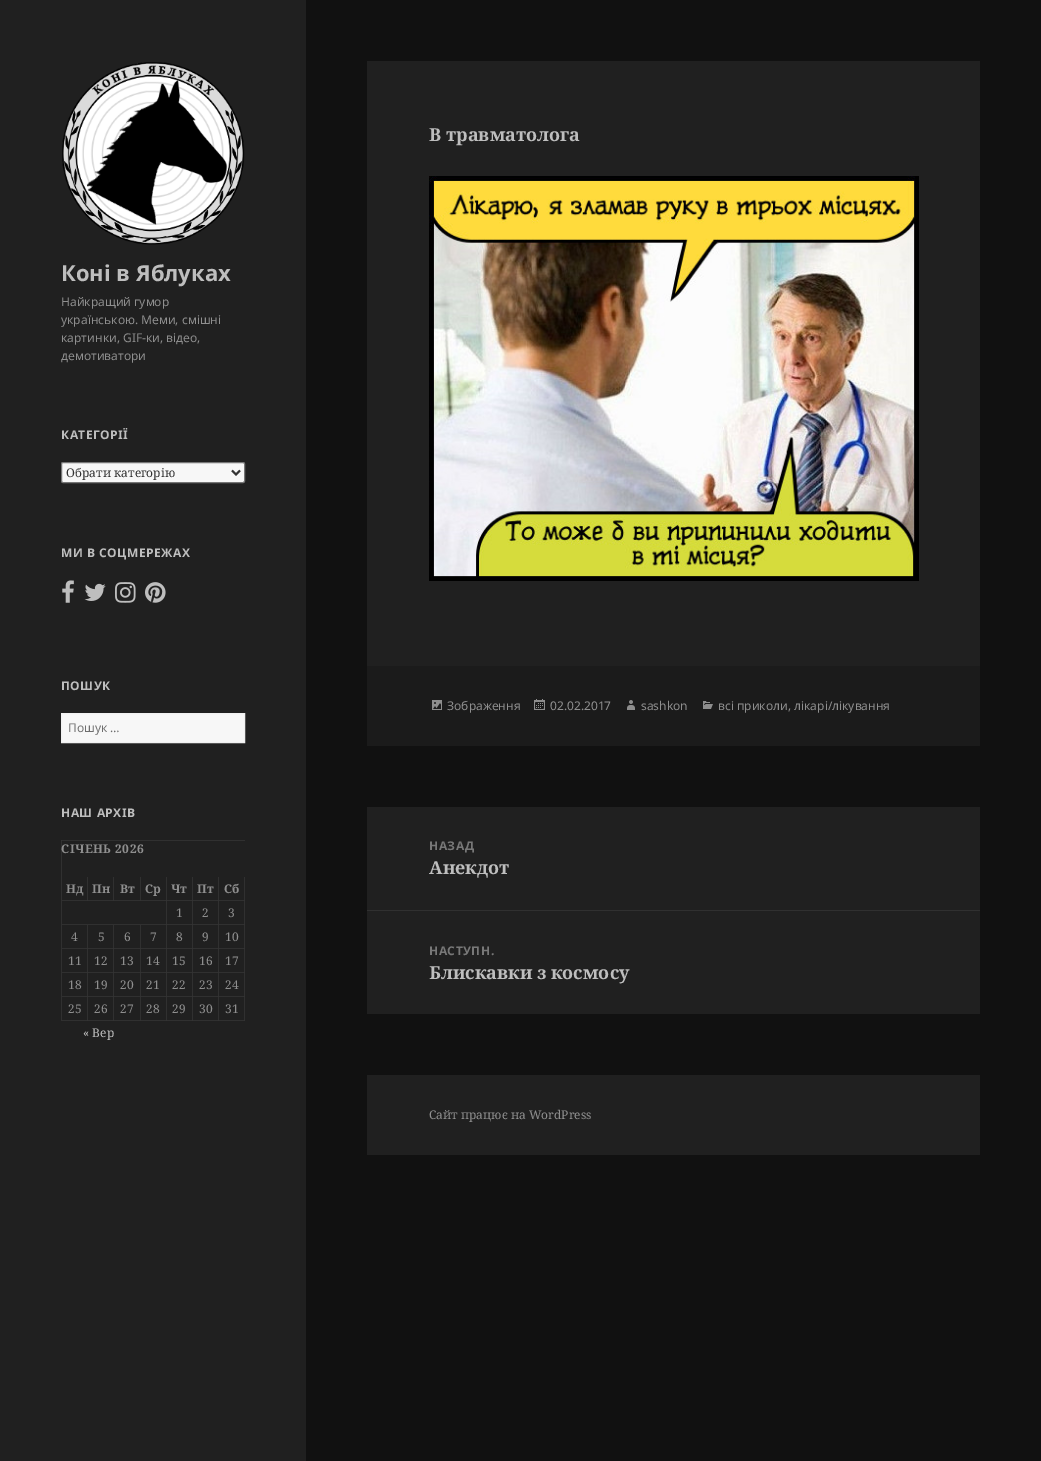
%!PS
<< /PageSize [1041 1461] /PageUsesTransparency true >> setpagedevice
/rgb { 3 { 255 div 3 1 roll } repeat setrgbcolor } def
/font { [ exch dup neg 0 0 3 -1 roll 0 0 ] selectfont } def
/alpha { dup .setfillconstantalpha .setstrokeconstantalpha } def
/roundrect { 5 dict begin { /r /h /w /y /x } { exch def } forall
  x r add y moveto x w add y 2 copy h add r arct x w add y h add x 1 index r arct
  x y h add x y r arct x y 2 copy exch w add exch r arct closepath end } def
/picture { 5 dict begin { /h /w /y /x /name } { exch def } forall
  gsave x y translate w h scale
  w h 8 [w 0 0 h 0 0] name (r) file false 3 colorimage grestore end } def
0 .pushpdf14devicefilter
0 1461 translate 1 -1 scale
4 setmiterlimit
17 17 17 rgb
0 0 1041 1461 rectfill
32 32 32 rgb
0 0 306 1461 rectfill
(img/1.rgb) 62 62 183 183 picture
247 247 247 rgb
61.5 462.5 183 20 1.5 roundrect gsave fill grestore
118 118 118 rgb
stroke
51 51 51 rgb
2 setlinewidth
232 470.5 moveto 236 474.5 lineto 240 470.5 lineto stroke
(img/2.rgb) 62 580 12 23 picture
(img/3.rgb) 84 583 22 18 picture
(img/4.rgb) 115 582 21 21 picture
(img/5.rgb) 145 582 21 21 picture
247 247 247 rgb
61.5 713.5 moveto 244.5 713.5 lineto 244.5 742.5 lineto 61.5 742.5 lineto closepath gsave fill grestore
241 241 241 rgb
1 setlinewidth
stroke
48 48 48 rgb
61 840 moveto 245 840 lineto 245 841 lineto 62 841 lineto closepath fill
0.1 alpha
190 190 190 rgb
61 1021 moveto 61 840 lineto 62 841 lineto 62 1021 lineto closepath fill
1 alpha
48 48 48 rgb
88 877 moveto 88 901 lineto 87 900 lineto 87 877 lineto closepath fill
0.1 alpha
190 190 190 rgb
88 901 moveto 62 901 lineto 62 900 lineto 87 900 lineto closepath fill
1 alpha
48 48 48 rgb
114 877 moveto 114 901 lineto 113 900 lineto 113 877 lineto closepath fill
0.1 alpha
190 190 190 rgb
114 901 moveto 88 901 lineto 88 900 lineto 113 900 lineto closepath fill
1 alpha
48 48 48 rgb
141 877 moveto 141 901 lineto 140 900 lineto 140 877 lineto closepath fill
0.1 alpha
190 190 190 rgb
141 901 moveto 114 901 lineto 114 900 lineto 140 900 lineto closepath fill
1 alpha
48 48 48 rgb
167 877 moveto 167 901 lineto 166 900 lineto 166 877 lineto closepath fill
0.1 alpha
190 190 190 rgb
167 901 moveto 141 901 lineto 141 900 lineto 166 900 lineto closepath fill
1 alpha
48 48 48 rgb
193 877 moveto 193 901 lineto 192 900 lineto 192 877 lineto closepath fill
0.1 alpha
190 190 190 rgb
193 901 moveto 167 901 lineto 167 900 lineto 192 900 lineto closepath fill
1 alpha
48 48 48 rgb
219 877 moveto 219 901 lineto 218 900 lineto 218 877 lineto closepath fill
0.1 alpha
190 190 190 rgb
219 901 moveto 193 901 lineto 193 900 lineto 218 900 lineto closepath fill
1 alpha
48 48 48 rgb
245 877 moveto 245 901 lineto 244 900 lineto 244 877 lineto closepath fill
0.1 alpha
190 190 190 rgb
245 901 moveto 219 901 lineto 219 900 lineto 244 900 lineto closepath fill
1 alpha
48 48 48 rgb
167 901 moveto 167 925 lineto 166 924 lineto 166 901 lineto closepath fill
0.1 alpha
190 190 190 rgb
167 925 moveto 62 925 lineto 62 924 lineto 166 924 lineto closepath fill
1 alpha
48 48 48 rgb
193 901 moveto 193 925 lineto 192 924 lineto 192 901 lineto closepath fill
0.1 alpha
190 190 190 rgb
193 925 moveto 167 925 lineto 167 924 lineto 192 924 lineto closepath fill
1 alpha
48 48 48 rgb
219 901 moveto 219 925 lineto 218 924 lineto 218 901 lineto closepath fill
0.1 alpha
190 190 190 rgb
219 925 moveto 193 925 lineto 193 924 lineto 218 924 lineto closepath fill
1 alpha
48 48 48 rgb
245 901 moveto 245 925 lineto 244 924 lineto 244 901 lineto closepath fill
0.1 alpha
190 190 190 rgb
245 925 moveto 219 925 lineto 219 924 lineto 244 924 lineto closepath fill
1 alpha
48 48 48 rgb
88 925 moveto 88 949 lineto 87 948 lineto 87 925 lineto closepath fill
0.1 alpha
190 190 190 rgb
88 949 moveto 62 949 lineto 62 948 lineto 87 948 lineto closepath fill
1 alpha
48 48 48 rgb
114 925 moveto 114 949 lineto 113 948 lineto 113 925 lineto closepath fill
0.1 alpha
190 190 190 rgb
114 949 moveto 88 949 lineto 88 948 lineto 113 948 lineto closepath fill
1 alpha
48 48 48 rgb
141 925 moveto 141 949 lineto 140 948 lineto 140 925 lineto closepath fill
0.1 alpha
190 190 190 rgb
141 949 moveto 114 949 lineto 114 948 lineto 140 948 lineto closepath fill
1 alpha
48 48 48 rgb
167 925 moveto 167 949 lineto 166 948 lineto 166 925 lineto closepath fill
0.1 alpha
190 190 190 rgb
167 949 moveto 141 949 lineto 141 948 lineto 166 948 lineto closepath fill
1 alpha
48 48 48 rgb
193 925 moveto 193 949 lineto 192 948 lineto 192 925 lineto closepath fill
0.1 alpha
190 190 190 rgb
193 949 moveto 167 949 lineto 167 948 lineto 192 948 lineto closepath fill
1 alpha
48 48 48 rgb
219 925 moveto 219 949 lineto 218 948 lineto 218 925 lineto closepath fill
0.1 alpha
190 190 190 rgb
219 949 moveto 193 949 lineto 193 948 lineto 218 948 lineto closepath fill
1 alpha
48 48 48 rgb
245 925 moveto 245 949 lineto 244 948 lineto 244 925 lineto closepath fill
0.1 alpha
190 190 190 rgb
245 949 moveto 219 949 lineto 219 948 lineto 244 948 lineto closepath fill
1 alpha
48 48 48 rgb
88 949 moveto 88 973 lineto 87 972 lineto 87 949 lineto closepath fill
0.1 alpha
190 190 190 rgb
88 973 moveto 62 973 lineto 62 972 lineto 87 972 lineto closepath fill
1 alpha
48 48 48 rgb
114 949 moveto 114 973 lineto 113 972 lineto 113 949 lineto closepath fill
0.1 alpha
190 190 190 rgb
114 973 moveto 88 973 lineto 88 972 lineto 113 972 lineto closepath fill
1 alpha
48 48 48 rgb
141 949 moveto 141 973 lineto 140 972 lineto 140 949 lineto closepath fill
0.1 alpha
190 190 190 rgb
141 973 moveto 114 973 lineto 114 972 lineto 140 972 lineto closepath fill
1 alpha
48 48 48 rgb
167 949 moveto 167 973 lineto 166 972 lineto 166 949 lineto closepath fill
0.1 alpha
190 190 190 rgb
167 973 moveto 141 973 lineto 141 972 lineto 166 972 lineto closepath fill
1 alpha
48 48 48 rgb
193 949 moveto 193 973 lineto 192 972 lineto 192 949 lineto closepath fill
0.1 alpha
190 190 190 rgb
193 973 moveto 167 973 lineto 167 972 lineto 192 972 lineto closepath fill
1 alpha
48 48 48 rgb
219 949 moveto 219 973 lineto 218 972 lineto 218 949 lineto closepath fill
0.1 alpha
190 190 190 rgb
219 973 moveto 193 973 lineto 193 972 lineto 218 972 lineto closepath fill
1 alpha
48 48 48 rgb
245 949 moveto 245 973 lineto 244 972 lineto 244 949 lineto closepath fill
0.1 alpha
190 190 190 rgb
245 973 moveto 219 973 lineto 219 972 lineto 244 972 lineto closepath fill
1 alpha
48 48 48 rgb
88 973 moveto 88 997 lineto 87 996 lineto 87 973 lineto closepath fill
0.1 alpha
190 190 190 rgb
88 997 moveto 62 997 lineto 62 996 lineto 87 996 lineto closepath fill
1 alpha
48 48 48 rgb
114 973 moveto 114 997 lineto 113 996 lineto 113 973 lineto closepath fill
0.1 alpha
190 190 190 rgb
114 997 moveto 88 997 lineto 88 996 lineto 113 996 lineto closepath fill
1 alpha
48 48 48 rgb
141 973 moveto 141 997 lineto 140 996 lineto 140 973 lineto closepath fill
0.1 alpha
190 190 190 rgb
141 997 moveto 114 997 lineto 114 996 lineto 140 996 lineto closepath fill
1 alpha
48 48 48 rgb
167 973 moveto 167 997 lineto 166 996 lineto 166 973 lineto closepath fill
0.1 alpha
190 190 190 rgb
167 997 moveto 141 997 lineto 141 996 lineto 166 996 lineto closepath fill
1 alpha
48 48 48 rgb
193 973 moveto 193 997 lineto 192 996 lineto 192 973 lineto closepath fill
0.1 alpha
190 190 190 rgb
193 997 moveto 167 997 lineto 167 996 lineto 192 996 lineto closepath fill
1 alpha
48 48 48 rgb
219 973 moveto 219 997 lineto 218 996 lineto 218 973 lineto closepath fill
0.1 alpha
190 190 190 rgb
219 997 moveto 193 997 lineto 193 996 lineto 218 996 lineto closepath fill
1 alpha
48 48 48 rgb
245 973 moveto 245 997 lineto 244 996 lineto 244 973 lineto closepath fill
0.1 alpha
190 190 190 rgb
245 997 moveto 219 997 lineto 219 996 lineto 244 996 lineto closepath fill
1 alpha
48 48 48 rgb
88 997 moveto 88 1021 lineto 87 1020 lineto 87 997 lineto closepath fill
0.1 alpha
190 190 190 rgb
88 1021 moveto 62 1021 lineto 62 1020 lineto 87 1020 lineto closepath fill
1 alpha
48 48 48 rgb
114 997 moveto 114 1021 lineto 113 1020 lineto 113 997 lineto closepath fill
0.1 alpha
190 190 190 rgb
114 1021 moveto 88 1021 lineto 88 1020 lineto 113 1020 lineto closepath fill
1 alpha
48 48 48 rgb
141 997 moveto 141 1021 lineto 140 1020 lineto 140 997 lineto closepath fill
0.1 alpha
190 190 190 rgb
141 1021 moveto 114 1021 lineto 114 1020 lineto 140 1020 lineto closepath fill
1 alpha
48 48 48 rgb
167 997 moveto 167 1021 lineto 166 1020 lineto 166 997 lineto closepath fill
0.1 alpha
190 190 190 rgb
167 1021 moveto 141 1021 lineto 141 1020 lineto 166 1020 lineto closepath fill
1 alpha
48 48 48 rgb
193 997 moveto 193 1021 lineto 192 1020 lineto 192 997 lineto closepath fill
0.1 alpha
190 190 190 rgb
193 1021 moveto 167 1021 lineto 167 1020 lineto 192 1020 lineto closepath fill
1 alpha
48 48 48 rgb
219 997 moveto 219 1021 lineto 218 1020 lineto 218 997 lineto closepath fill
0.1 alpha
190 190 190 rgb
219 1021 moveto 193 1021 lineto 193 1020 lineto 218 1020 lineto closepath fill
1 alpha
48 48 48 rgb
245 997 moveto 245 1021 lineto 244 1020 lineto 244 997 lineto closepath fill
0.1 alpha
190 190 190 rgb
245 1021 moveto 219 1021 lineto 219 1020 lineto 244 1020 lineto closepath fill
1 alpha
32 32 32 rgb
367 61 613 605 rectfill
(img/6.rgb) 429 176 490 405 picture
27 27 27 rgb
367 666 613 80 rectfill
(img/7.rgb) 432 700 10 10 picture
(img/8.rgb) 534 699 11 11 picture
(img/9.rgb) 627 700 8 10 picture
(img/10.rgb) 703 701 10 8 picture
[
  [367 807 613 207 32 32 32]
  [367 910 613 1 48 48 48]
  [367 1075 613 80 32 32 32]
] { aload pop rgb rectfill } forall
/NotoSans-Bold 22 font
190 190 190 rgb
61 281 moveto (Коні в Яблуках) show
/NotoSans-Regular 12 font
143 143 143 rgb
[
  [(Найкращий гумор) 61 306]
  [(українською. Меми, смішні) 61 324]
  [(картинки, GIF-ки, відео,) 61 342]
  [(демотиватори) 61 360]
] { aload pop moveto show } forall
/NotoSans-Bold 12 font
190 190 190 rgb
61 439 moveto 0.5 0 (КАТЕГОРІЇ) ashow
/NotoSerif-Regular 12 font
51 51 51 rgb
66 477 moveto (Обрати категорію) show
/NotoSans-Bold 12 font
190 190 190 rgb
61 557 moveto 0.5 0 (МИ В СОЦМЕРЕЖАХ) ashow
61 690 moveto 0.5 0 (ПОШУК) ashow
/NotoSans-Regular 12 font
110 110 110 rgb
68 732 moveto (Пошук …) show
/NotoSans-Bold 12 font
190 190 190 rgb
61 817 moveto 0.5 0 (НАШ АРХІВ) ashow
/NotoSerif-Bold 12 font
143 143 143 rgb
61 853 moveto 0.5 0 (СІЧЕНЬ 2026) ashow
[
  [(Нд) 66 893]
  [(Пн) 92 893]
  [(Вт) 120 893]
  [(Ср) 145 893]
  [(Чт) 171 893]
  [(Пт) 197 893]
  [(Сб) 224 893]
] { aload pop moveto show } forall
/NotoSerif-Regular 12 font
[
  [(1) 176 917]
  [(2) 202 917]
  [(3) 228 917]
  [(4) 71 941]
  [(5) 98 941]
  [(6) 124 941]
  [(7) 150 941]
  [(8) 176 941]
  [(9) 202 941]
  [(10) 225 941]
  [(11) 68 965]
  [(12) 94 965]
  [(13) 120 965]
  [(14) 146 965]
  [(15) 172 965]
  [(16) 199 965]
  [(17) 225 965]
  [(18) 68 989]
  [(19) 94 989]
  [(20) 120 989]
  [(21) 146 989]
  [(22) 172 989]
  [(23) 199 989]
  [(24) 225 989]
  [(25) 68 1013]
  [(26) 94 1013]
  [(27) 120 1013]
  [(28) 146 1013]
  [(29) 172 1013]
  [(30) 199 1013]
  [(31) 225 1013]
] { aload pop moveto show } forall
190 190 190 rgb
83 1037 moveto (« Вер) show
/NotoSerif-Bold 18 font
429 141 moveto (В травматолога) show
/NotoSans-Regular 12 font
143 143 143 rgb
[
  [(Зображення) 447 710]
  [(02.02.2017) 550 710]
  [(sashkon) 641 710]
  [(всі приколи, лікарі/лікування) 718 710]
] { aload pop moveto show } forall
/NotoSans-Bold 12 font
120 120 120 rgb
429 850 moveto 0.5 0 (НАЗАД) ashow
/NotoSerif-Bold 18 font
190 190 190 rgb
429 874 moveto (Анекдот) show
/NotoSans-Bold 12 font
120 120 120 rgb
429 955 moveto 0.5 0 (НАСТУПН.) ashow
/NotoSerif-Bold 18 font
190 190 190 rgb
429 979 moveto (Блискавки з космосу) show
/NotoSerif-Regular 12 font
143 143 143 rgb
429 1119 moveto (Сайт працює на WordPress) show
.poppdf14devicefilter showpage
